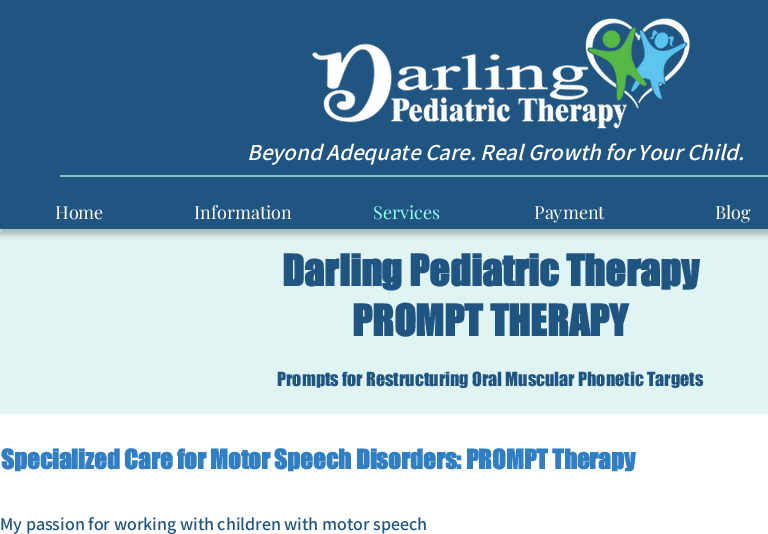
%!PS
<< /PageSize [768 534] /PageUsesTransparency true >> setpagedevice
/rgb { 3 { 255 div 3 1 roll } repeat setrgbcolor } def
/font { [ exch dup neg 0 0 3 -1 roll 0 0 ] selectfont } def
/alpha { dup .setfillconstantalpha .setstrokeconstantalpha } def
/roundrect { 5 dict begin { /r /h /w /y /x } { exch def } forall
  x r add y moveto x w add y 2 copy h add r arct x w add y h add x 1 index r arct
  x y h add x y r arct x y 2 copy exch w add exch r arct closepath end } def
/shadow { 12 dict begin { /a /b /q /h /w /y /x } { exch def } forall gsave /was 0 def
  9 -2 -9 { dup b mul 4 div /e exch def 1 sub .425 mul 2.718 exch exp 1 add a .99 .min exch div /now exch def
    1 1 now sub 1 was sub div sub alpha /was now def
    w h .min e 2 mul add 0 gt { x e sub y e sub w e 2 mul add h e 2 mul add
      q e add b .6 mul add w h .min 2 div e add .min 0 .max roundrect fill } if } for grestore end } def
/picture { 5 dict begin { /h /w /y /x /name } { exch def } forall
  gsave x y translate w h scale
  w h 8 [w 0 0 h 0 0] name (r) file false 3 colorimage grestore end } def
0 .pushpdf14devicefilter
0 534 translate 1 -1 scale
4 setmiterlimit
255 255 255 rgb
0 0 768 534 rectfill
223 244 243 rgb
0 229 768 185 rectfill
0 0 0 rgb
0 6 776 229 0 2.5 0.22 shadow
33 85 129 rgb
0 0 768 229 rectfill
(img/1.rgb) 312 18 378 111 picture
129 199 193 rgb
60 175 708 2 rectfill
/Assistant-SemiBoldItalic 23 font
255 255 255 rgb
247 160 moveto (Beyond Adequate Care. Real Growth for Your Child.) show
/PlayfairDisplay-Regular 18 font
55 219 moveto (Home) show
194 219 moveto (Information) show
150 254 249 rgb
373 219 moveto (Services) show
255 255 255 rgb
534 219 moveto (Payment) show
715 219 moveto (Blog) show
/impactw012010-Bold 40 font
33 85 129 rgb
282 286 moveto (Darling Pediatric Therapy) show
352 336 moveto (PROMPT THERAPY) show
/impactw012010-Regular 18 font
277 386 moveto (Prompts for Restructuring Oral Muscular Phonetic Targets) show
/impactw012010-Bold 25 font
49 127 194 rgb
1 469 moveto (Specialized Care for Motor Speech Disorders: PROMPT Therapy) show
/Assistant-SemiBold 18 font
33 85 129 rgb
0 530 moveto (My passion for working with children with motor speech) show
.poppdf14devicefilter showpage
